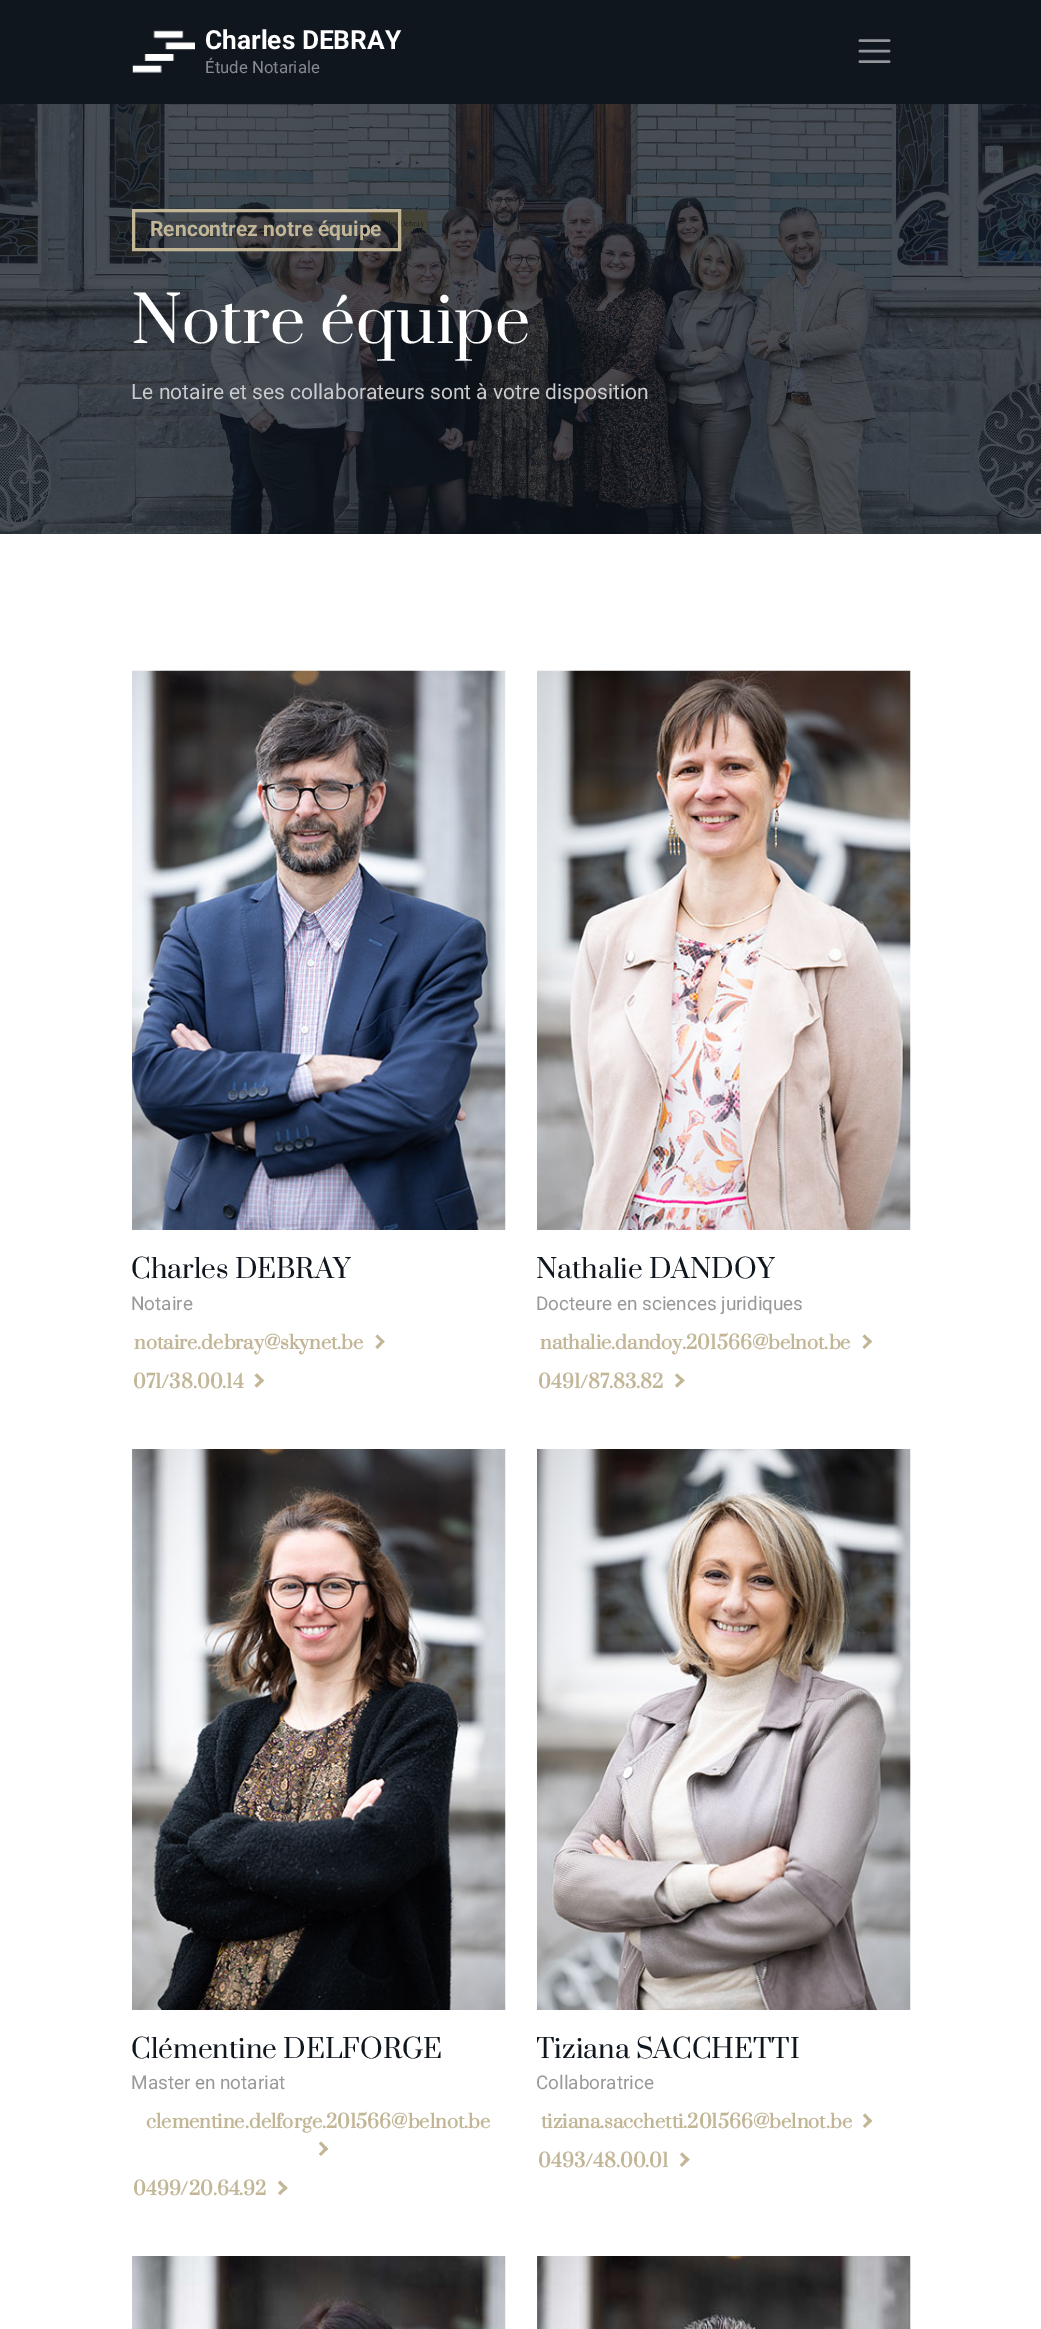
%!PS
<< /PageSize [1041 2329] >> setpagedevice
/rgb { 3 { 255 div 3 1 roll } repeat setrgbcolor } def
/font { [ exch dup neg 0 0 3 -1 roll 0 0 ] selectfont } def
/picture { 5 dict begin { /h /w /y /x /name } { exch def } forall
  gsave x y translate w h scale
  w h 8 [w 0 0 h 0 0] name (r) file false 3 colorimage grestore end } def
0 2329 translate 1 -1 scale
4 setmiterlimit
255 255 255 rgb
0 0 1041 2329 rectfill
15 22 30 rgb
0 0 1041 104 rectfill
(img/1.rgb) 132 30 63 43 picture
147 150 154 rgb
2.6 setlinewidth
1 setlinecap
860 40.5 moveto 889 40.5 lineto 860 51 moveto 889 51 lineto 860 61.5 moveto 889 61.5 lineto stroke
(img/2.rgb) 0 104 1041 430 picture
194 182 151 rgb
3 setlinewidth
0 setlinecap
133.5 210.5 266 39 rectstroke
(img/3.rgb) 132 670 374 560 picture
375.5 1336.5 moveto 377.5 1334.5 lineto 384.5 1341.5 lineto 382.5 1343.5 lineto closepath fill
375.5 1347 moveto 382.5 1339.5 lineto 384.5 1341.5 lineto 377.5 1349 lineto closepath fill
254.5 1375.5 moveto 257 1373.5 lineto 264 1380.5 lineto 262 1382.5 lineto closepath fill
254.5 1385.5 moveto 262 1378.5 lineto 264 1380.5 lineto 257 1387.5 lineto closepath fill
(img/4.rgb) 537 670 374 560 picture
862.5 1336.5 moveto 864.5 1334.5 lineto 872 1341.5 lineto 870 1343.5 lineto closepath fill
862.5 1347 moveto 870 1339.5 lineto 872 1341.5 lineto 864.5 1349 lineto closepath fill
675 1375.5 moveto 677 1373.5 lineto 684.5 1380.5 lineto 682.5 1382.5 lineto closepath fill
675 1385.5 moveto 682.5 1378.5 lineto 684.5 1380.5 lineto 677 1387.5 lineto closepath fill
(img/5.rgb) 132 1449 374 561 picture
319 2143.5 moveto 321 2141.5 lineto 328 2149 lineto 326 2151 lineto closepath fill
319 2154 moveto 326 2146.5 lineto 328 2149 lineto 321 2156 lineto closepath fill
278 2183 moveto 280 2180.5 lineto 287.5 2188 lineto 285.5 2190 lineto closepath fill
278 2193 moveto 285.5 2186 lineto 287.5 2188 lineto 280 2195 lineto closepath fill
(img/6.rgb) 537 1449 374 561 picture
863 2115.5 moveto 865 2113.5 lineto 872 2121 lineto 870 2123 lineto closepath fill
863 2126 moveto 870 2118.5 lineto 872 2121 lineto 865 2128 lineto closepath fill
680 2154.5 moveto 682 2152.5 lineto 689.5 2159.5 lineto 687 2161.5 lineto closepath fill
680 2165 moveto 687 2157.5 lineto 689.5 2159.5 lineto 682 2167 lineto closepath fill
(img/7.rgb) 132 2256 374 73 picture
(img/8.rgb) 537 2256 374 73 picture
/Roboto-Bold 26.25 font
255 255 255 rgb
205 49 moveto (Charles DEBRAY) show
/Roboto-Regular 16.75 font
135 139 143 rgb
205 73 moveto (Étude Notariale) show
/Roboto-Bold 21 font
194 182 151 rgb
150 236 moveto (Rencontrez notre équipe) show
/Prata-Regular 63 font
255 255 255 rgb
131 343 moveto (Notre équipe) show
/Roboto-Regular 21 font
202 203 205 rgb
131 399 moveto (Le notaire et ses collaborateurs sont à votre disposition) show
/Prata-Regular 26.25 font
15 22 30 rgb
131 1278 moveto (Charles DEBRAY) show
/Roboto-Regular 18.9 font
153 153 153 rgb
131 1310 moveto (Notaire) show
/Prata-Bold 18.4 font
194 182 151 rgb
134 1349 moveto (notaire.debray@skynet.be) show
133 1388 moveto (071/38.00.14) show
/Prata-Regular 26.25 font
15 22 30 rgb
536 1278 moveto (Nathalie DANDOY) show
/Roboto-Regular 18.9 font
153 153 153 rgb
536 1310 moveto (Docteure en sciences juridiques) show
/Prata-Bold 18.4 font
194 182 151 rgb
540 1349 moveto (nathalie.dandoy.201566@belnot.be) show
538 1388 moveto (0491/87.83.82) show
/Prata-Regular 26.25 font
15 22 30 rgb
131 2058 moveto (Clémentine DELFORGE) show
/Roboto-Regular 18.9 font
153 153 153 rgb
131 2089 moveto (Master en notariat) show
/Prata-Bold 18.4 font
194 182 151 rgb
146 2128 moveto (clementine.delforge.201566@belnot.be) show
133 2195 moveto (0499/20.64.92) show
gsave
537 1449 374 749 rectclip
/Prata-Regular 26.25 font
15 22 30 rgb
536 2058 moveto (Tiziana) show
grestore
/Prata-Regular 26.25 font
15 22 30 rgb
636 2058 moveto (SACCHETTI) show
/Roboto-Regular 18.9 font
153 153 153 rgb
536 2089 moveto (Collaboratrice) show
/Prata-Bold 18.4 font
194 182 151 rgb
541 2128 moveto (tiziana.sacchetti.201566@belnot.be) show
538 2167 moveto (0493/48.00.01) show
showpage
